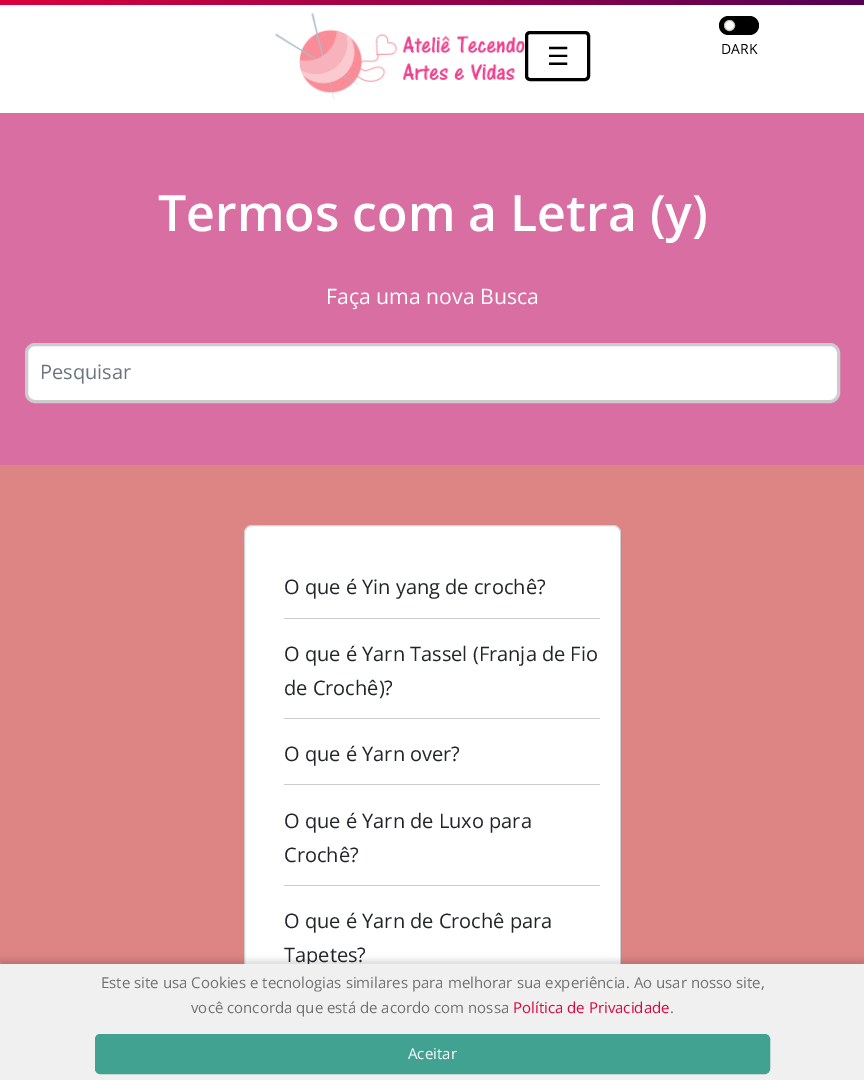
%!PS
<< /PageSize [864 1080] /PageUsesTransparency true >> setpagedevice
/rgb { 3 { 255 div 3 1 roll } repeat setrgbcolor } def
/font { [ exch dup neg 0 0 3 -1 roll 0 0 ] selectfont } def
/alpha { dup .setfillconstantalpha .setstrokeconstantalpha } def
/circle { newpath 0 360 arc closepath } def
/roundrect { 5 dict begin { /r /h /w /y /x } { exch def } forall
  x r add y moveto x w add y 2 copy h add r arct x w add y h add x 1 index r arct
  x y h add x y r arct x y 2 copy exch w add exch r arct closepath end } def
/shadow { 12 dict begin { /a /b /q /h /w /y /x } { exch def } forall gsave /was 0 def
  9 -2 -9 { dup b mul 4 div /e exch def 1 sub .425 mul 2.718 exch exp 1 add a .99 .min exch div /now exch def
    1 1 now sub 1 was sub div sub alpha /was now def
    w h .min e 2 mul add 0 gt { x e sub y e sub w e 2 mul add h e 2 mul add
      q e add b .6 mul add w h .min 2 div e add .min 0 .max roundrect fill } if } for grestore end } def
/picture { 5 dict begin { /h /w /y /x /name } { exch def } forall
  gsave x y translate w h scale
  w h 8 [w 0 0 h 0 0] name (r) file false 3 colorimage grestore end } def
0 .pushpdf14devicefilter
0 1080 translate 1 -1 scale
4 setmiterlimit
221 133 133 rgb
0 0 864 1080 rectfill
255 255 255 rgb
0 5 864 108 rectfill
gsave 0 0 moveto 864 0 lineto 864 5 lineto 0 5 lineto closepath clip newpath
<< /ShadingType 2 /ColorSpace /DeviceRGB /Coords [0 2.5 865 2.5] /Extend [true true] /Function << /FunctionType 2 /Domain [0 1] /C0 [0.859 0.016 0.239] /C1 [0.329 0.004 0.329] /N 1 >> >> shfill grestore
(img/1.rgb) 275 12 250 88 picture
0 0 0 rgb
3 setlinewidth
526.5 32.5 62 47 3.5 roundrect stroke
719 16 40 19 9.5 roundrect fill
255 255 255 rgb
729.5 25.5 5 circle gsave fill grestore
200 195 188 rgb
1 setlinewidth
stroke
217 110 162 rgb
0 113 864 352 rectfill
255 255 255 rgb
26.5 344.5 812 57 8.5 roundrect gsave fill grestore
204 204 204 rgb
3 setlinewidth
stroke
255 255 255 rgb
244 525 377 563 8 roundrect fill
0.18 alpha
0 0 0 rgb
1 setlinewidth
244.5 525.5 376 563 7.5 roundrect stroke
1 alpha
[
  [284 618 316 1 204 204 204]
  [284 718 316 1 204 204 204]
  [284 784 316 1 204 204 204]
  [284 885 316 1 204 204 204]
] { aload pop rgb rectfill } forall
0 0 0 rgb
0 960 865 116 0 3 0.14 shadow
/DejaVuSans-Regular 25 font
547 65 moveto (☰) show
/OpenSans-Regular 14 font
721 54 moveto (DARK) show
/OpenSans-SemiBold 50 font
255 255 255 rgb
158 231 moveto (Termos com a Letra \(y\)) show
/OpenSans-Regular 21.25 font
326 304 moveto (Faça uma nova Busca) show
/OpenSans-Regular 20 font
108 117 125 rgb
40 379 moveto (Pesquisar) show
33 37 41 rgb
[
  [(O que é Yin yang de crochê?) 284 594]
  [(O que é Yarn Tassel \(Franja de Fio) 284 661]
  [(de Crochê\)?) 284 695]
  [(O que é Yarn over?) 284 761]
  [(O que é Yarn de Luxo para) 284 828]
  [(Crochê?) 284 862]
  [(O que é Yarn de Crochê para) 284 928]
  [(Tapetes?) 284 962]
] { aload pop moveto show } forall
240 240 240 rgb
0 964 864 116 rectfill
/OpenSans-Regular 15 font
112 112 112 rgb
101 988 moveto (Este site usa Cookies e tecnologias similares para melhorar sua experiência. Ao usar nosso site,) show
191 1013 moveto (você concorda que está de acordo com nossa) show
219 4 61 rgb
513 1013 moveto (Política de Privacidade) show
112 112 112 rgb
670 1013 moveto (.) show
66 162 146 rgb
95.5 1034.5 674 39 4.5 roundrect gsave fill grestore
stroke
255 255 255 rgb
408 1059 moveto (Aceitar) show
.poppdf14devicefilter showpage
